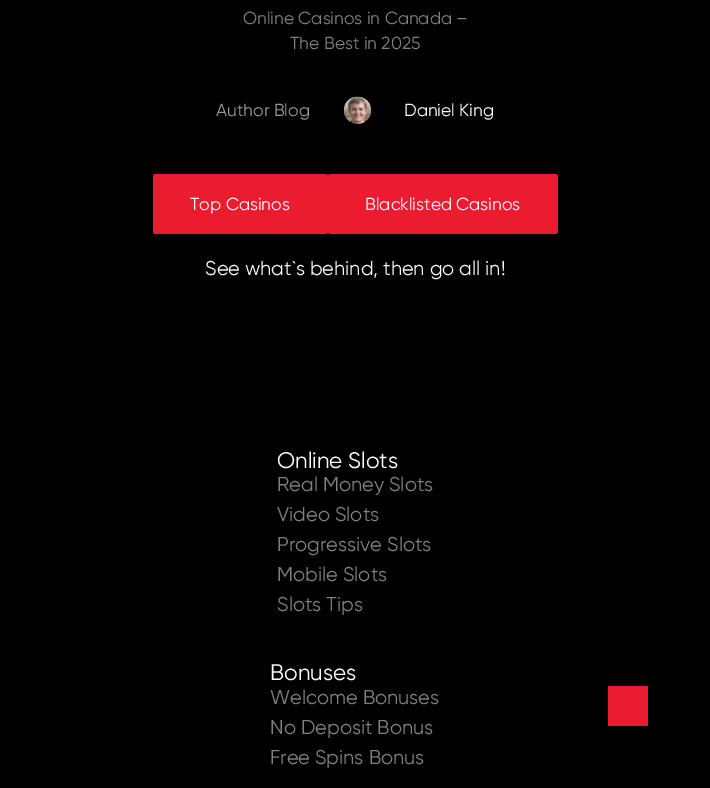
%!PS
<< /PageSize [710 788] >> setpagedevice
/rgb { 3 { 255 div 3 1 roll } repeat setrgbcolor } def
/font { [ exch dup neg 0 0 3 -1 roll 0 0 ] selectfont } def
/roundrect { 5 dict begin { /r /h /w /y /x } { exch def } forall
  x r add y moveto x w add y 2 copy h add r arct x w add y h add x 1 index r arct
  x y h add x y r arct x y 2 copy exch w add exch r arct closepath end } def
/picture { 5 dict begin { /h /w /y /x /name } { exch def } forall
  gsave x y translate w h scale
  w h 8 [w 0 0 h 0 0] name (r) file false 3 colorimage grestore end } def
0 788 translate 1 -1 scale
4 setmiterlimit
0 0 0 rgb
0 0 710 788 rectfill
(img/1.rgb) 343 96 29 28 picture
235 28 48 rgb
153 174 175 60 2.5 roundrect fill
328 174 230 60 2.5 roundrect fill
608 686 40 40 rectfill
/Gilroy-Regular 17.5 font
128 128 128 rgb
243 24 moveto (Online Casinos in Canada –) show
290 49 moveto (The Best in 2025) show
153 153 153 rgb
216 116 moveto (Author Blog) show
255 255 255 rgb
[
  [(Daniel King) 404 116]
  [(Top Casinos) 190 210]
  [(Blacklisted Casinos) 365 210]
] { aload pop moveto show } forall
/Gilroy-Regular 20 font
247 247 247 rgb
205 275 moveto (See what`s behind, then go all in!) show
/Gilroy-Regular 22.5 font
255 255 255 rgb
277 468 moveto (Online Slots) show
/Gilroy-Regular 20 font
128 128 128 rgb
[
  [(Real Money Slots) 277 491]
  [(Video Slots) 277 521]
  [(Progressive Slots) 277 551]
  [(Mobile Slots) 277 581]
  [(Slots Tips) 277 611]
] { aload pop moveto show } forall
/Gilroy-Regular 22.5 font
255 255 255 rgb
270 680 moveto (Bonuses) show
/Gilroy-Regular 20 font
128 128 128 rgb
[
  [(Welcome Bonuses) 270 704]
  [(No Deposit Bonus) 270 734]
  [(Free Spins Bonus) 270 764]
] { aload pop moveto show } forall
showpage
